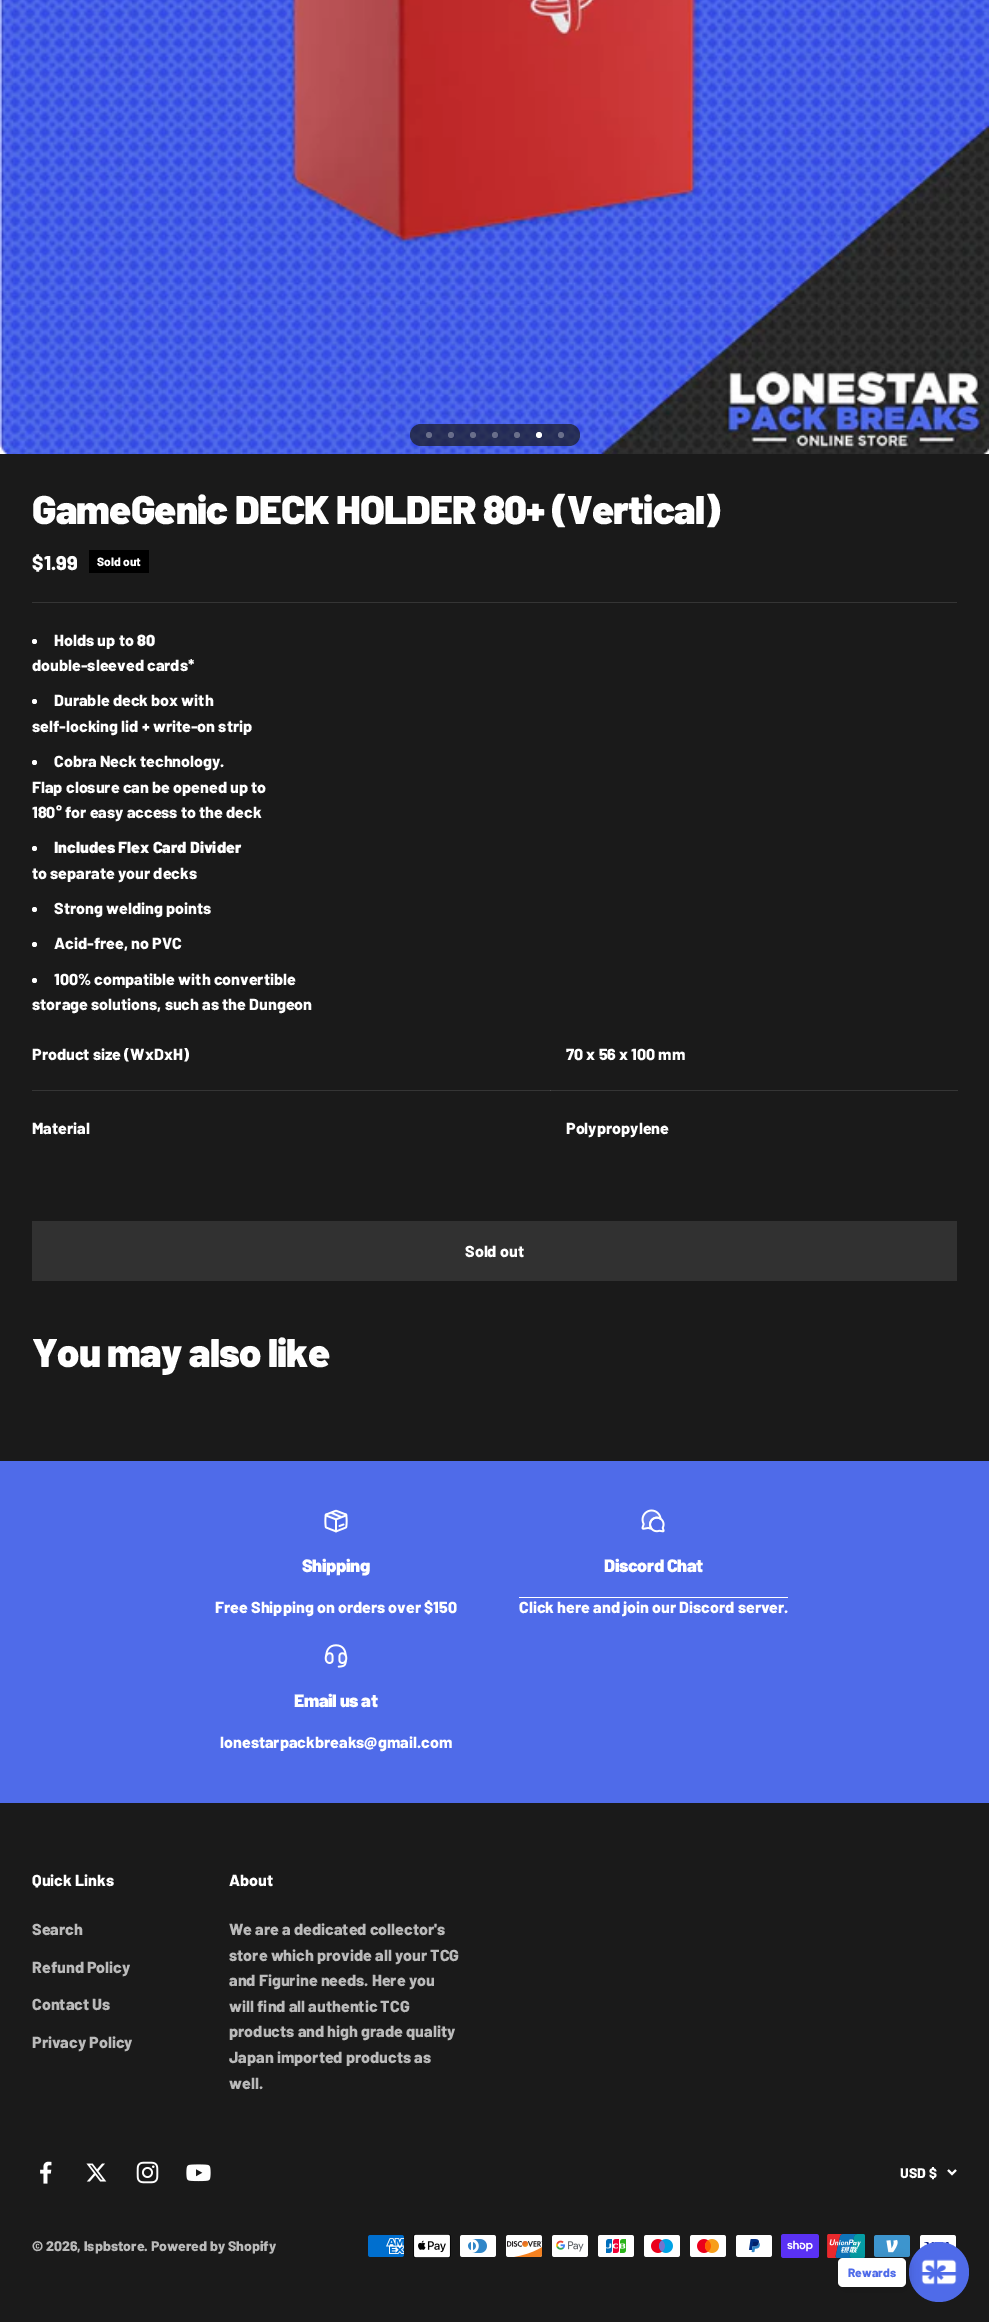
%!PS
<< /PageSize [989 2322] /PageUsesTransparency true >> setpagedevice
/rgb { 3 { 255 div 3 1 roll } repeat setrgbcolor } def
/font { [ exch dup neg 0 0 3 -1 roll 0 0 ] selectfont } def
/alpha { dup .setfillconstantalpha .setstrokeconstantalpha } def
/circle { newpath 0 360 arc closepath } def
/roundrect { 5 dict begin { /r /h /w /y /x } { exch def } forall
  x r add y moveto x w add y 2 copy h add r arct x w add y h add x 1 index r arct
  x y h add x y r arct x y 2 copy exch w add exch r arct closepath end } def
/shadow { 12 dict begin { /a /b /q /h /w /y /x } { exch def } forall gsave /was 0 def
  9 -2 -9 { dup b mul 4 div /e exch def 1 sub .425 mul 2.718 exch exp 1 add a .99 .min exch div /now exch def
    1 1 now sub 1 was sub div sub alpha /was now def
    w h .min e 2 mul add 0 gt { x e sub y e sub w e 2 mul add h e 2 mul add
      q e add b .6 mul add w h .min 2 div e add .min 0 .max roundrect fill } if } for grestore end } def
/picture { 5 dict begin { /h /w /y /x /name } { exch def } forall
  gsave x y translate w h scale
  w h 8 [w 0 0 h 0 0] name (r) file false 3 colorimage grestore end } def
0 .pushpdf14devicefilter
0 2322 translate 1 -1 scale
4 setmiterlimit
26 26 26 rgb
0 0 989 2322 rectfill
53 53 53 rgb
32 1090 926 1 rectfill
(img/1.rgb) 0 0 989 454 picture
0.7 alpha
26 26 26 rgb
410 424 170 22 11 roundrect fill
0.3 alpha
255 255 255 rgb
429 435 3 circle fill
451 435 3 circle fill
473 435 3 circle fill
495 435 3 circle fill
517 435 3 circle fill
1 alpha
539 435 3 circle fill
0.3 alpha
561 435 3 circle fill
1 alpha
0 0 0 rgb
89 550 60 23 rectfill
53 53 53 rgb
32 602 925 1 rectfill
255 255 255 rgb
34.5 641.5 2.5 circle fill
34.5 701.5 2.5 circle fill
34.5 762.5 2.5 circle fill
34.5 848.5 2.5 circle fill
34.5 909.5 2.5 circle fill
34.5 944.5 2.5 circle fill
34.5 980.5 2.5 circle fill
[
  [550 1090 1 1 77 77 77]
  [32 1221 925 60 49 49 49]
  [0 1461 989 342 79 107 233]
] { aload pop rgb rectfill } forall
(img/2.rgb) 324 1509 24 24 picture
(img/3.rgb) 641 1509 24 24 picture
255 255 255 rgb
519 1597 269 1 rectfill
(img/4.rgb) 324 1644 24 24 picture
(img/5.rgb) 40 2161 12 23 picture
(img/6.rgb) 86 2163 21 19 picture
(img/7.rgb) 136 2161 23 23 picture
(img/8.rgb) 186 2164 25 18 picture
2 setlinewidth
948 2170 moveto 952 2174 lineto 956 2170 lineto stroke
(img/9.rgb) 368 2235 36 22 picture
(img/10.rgb) 413 2234 38 24 picture
(img/11.rgb) 460 2235 36 22 picture
(img/12.rgb) 506 2235 36 22 picture
(img/13.rgb) 552 2235 36 22 picture
(img/14.rgb) 598 2235 36 22 picture
(img/15.rgb) 644 2235 36 22 picture
(img/16.rgb) 690 2235 36 22 picture
(img/17.rgb) 736 2235 36 22 picture
(img/18.rgb) 781 2234 38 24 picture
(img/19.rgb) 827 2234 38 24 picture
(img/20.rgb) 874 2235 36 22 picture
(img/21.rgb) 920 2235 36 14 picture
79 107 233 rgb
939 2272 30 circle fill
(img/22.rgb) 921 2259 36 26 picture
0 0 0 rgb
840 2260 68 29 5 5 0.2 shadow
255 255 255 rgb
838 2258 68 29 5 roundrect fill
/Barlow-Black 40 font
32 524 moveto -0.8 0 (GameGenic DECK HOLDER 80+ \(Vertical\)) ashow
/Barlow-ExtraBold 20 font
32 570 moveto ($1.99) show
/Barlow-ExtraBold 12 font
97 566 moveto (Sold out) show
/Barlow-ExtraBold 16 font
54 646 moveto (Holds up to) show
/Barlow-Black 16 font
137 646 moveto (80) show
/Barlow-ExtraBold 16 font
[
  [(double-sleeved cards*) 32 671]
  [(Durable deck box with) 54 706]
  [(self-locking lid + write-on strip) 32 732]
  [(Cobra Neck technology.) 54 767]
  [(Flap closure can be opened up to) 32 793]
  [(180° for easy access to the deck) 32 818]
] { aload pop moveto show } forall
/Barlow-Black 16 font
54 853 moveto (Includes Flex Card Divider) show
/Barlow-ExtraBold 16 font
[
  [(to separate your decks) 32 879]
  [(Strong welding points) 54 914]
  [(Acid-free, no PVC) 54 949]
  [(100% compatible with convertible) 54 985]
  [(storage solutions, such as the Dungeon) 32 1010]
  [(Product size \(WxDxH\)) 32 1060]
  [(70 x 56 x 100 mm) 566 1060]
  [(Material) 32 1134]
  [(Polypropylene) 566 1134]
  [(Sold out) 465 1257]
] { aload pop moveto show } forall
/Barlow-Black 40 font
32 1367 moveto -0.8 0 (You may also like) ashow
/Barlow-Black 18 font
302 1572 moveto -0.4 0 (Shipping) ashow
/Barlow-ExtraBold 16 font
215 1613 moveto (Free Shipping on orders over $150) show
/Barlow-Black 18 font
604 1572 moveto -0.4 0 (Discord Chat) ashow
/Barlow-ExtraBold 16 font
519 1613 moveto (Click here and join our Discord server.) show
/Barlow-Black 18 font
294 1707 moveto -0.4 0 (Email us at) ashow
/Barlow-ExtraBold 16 font
220 1748 moveto (lonestarpackbreaks@gmail.com) show
32 1886 moveto (Quick Links) show
186 186 186 rgb
[
  [(Search) 32 1935]
  [(Refund Policy) 32 1973]
  [(Contact Us) 32 2010]
  [(Privacy Policy) 32 2048]
] { aload pop moveto show } forall
255 255 255 rgb
229 1886 moveto (About) show
186 186 186 rgb
[
  [(We are a dedicated collector's) 229 1935]
  [(store which provide all your TCG) 229 1961]
  [(and Figurine needs. Here you) 229 1986]
  [(will find all authentic TCG) 229 2012]
  [(products and high grade quality) 229 2037]
  [(Japan imported products as) 229 2063]
  [(well.) 229 2089]
] { aload pop moveto show } forall
/Barlow-ExtraBold 14 font
255 255 255 rgb
900 2178 moveto (USD $) show
186 186 186 rgb
32 2251 moveto (© 2026, lspbstore. Powered by Shopify) show
/Barlow-ExtraBold 12 font
79 107 233 rgb
848 2277 moveto (Rewards) show
.poppdf14devicefilter showpage
